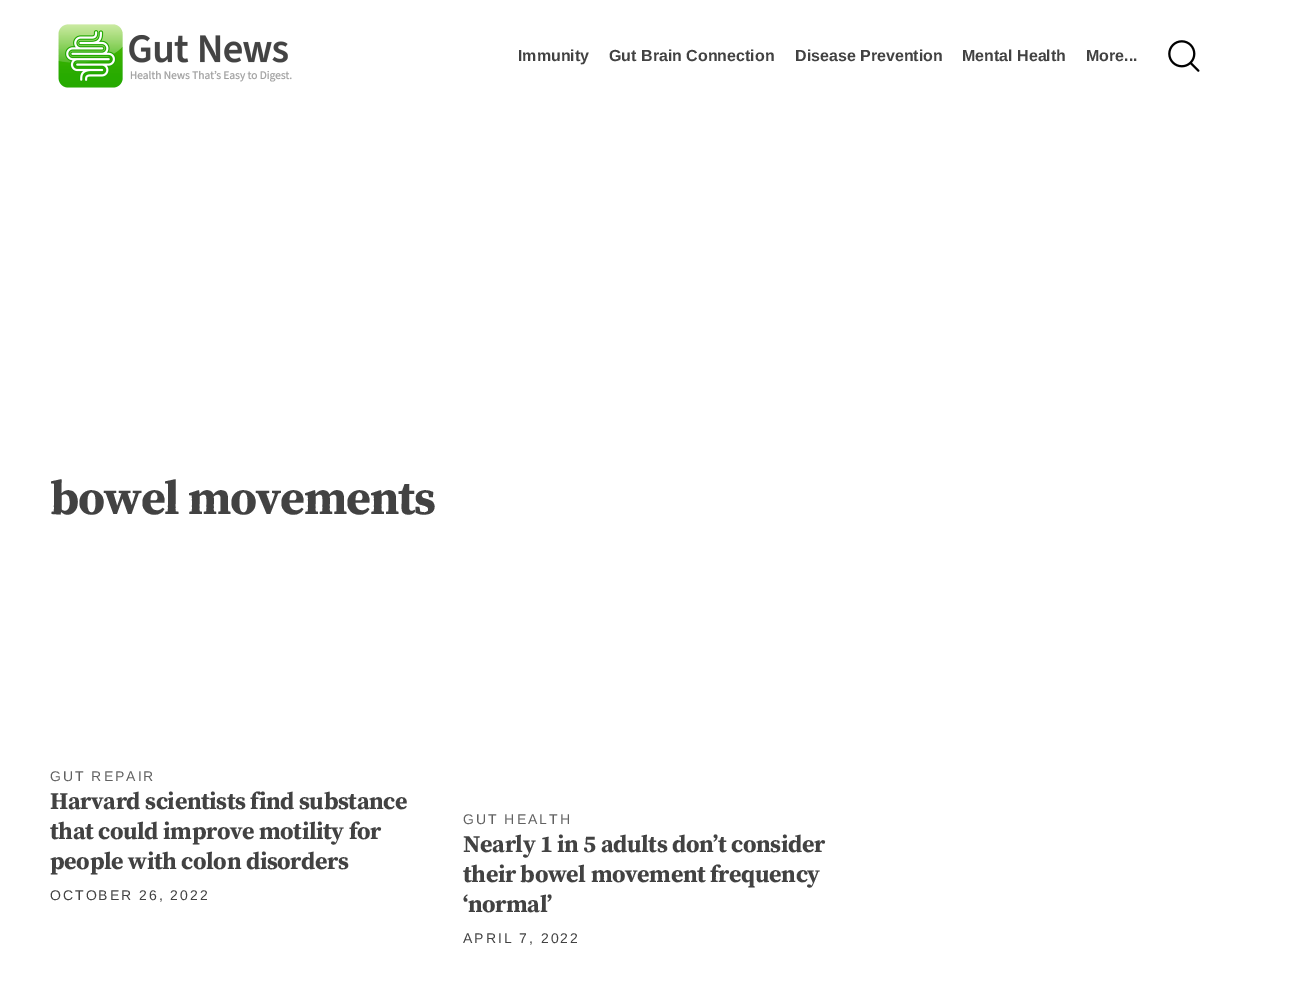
%!PS
<< /PageSize [1308 1003] >> setpagedevice
/rgb { 3 { 255 div 3 1 roll } repeat setrgbcolor } def
/font { [ exch dup neg 0 0 3 -1 roll 0 0 ] selectfont } def
/picture { 5 dict begin { /h /w /y /x /name } { exch def } forall
  gsave x y translate w h scale
  w h 8 [w 0 0 h 0 0] name (r) file false 3 colorimage grestore end } def
0 1003 translate 1 -1 scale
4 setmiterlimit
255 255 255 rgb
0 0 1308 1003 rectfill
(img/1.rgb) 58 24 234 64 picture
(img/2.rgb) 1168 40 32 32 picture
/LiberationSans-Bold 16 font
66 66 66 rgb
[
  [(Immunity) 518 61]
  [(Gut Brain Connection) 609 61]
  [(Disease Prevention) 795 61]
  [(Mental Health) 962 61]
  [(More...) 1086 61]
] { aload pop moveto show } forall
/SourceSerifPro-Bold 48 font
50 514 moveto -1.25 0 (bowel movements) ashow
/LiberationSans-Regular 14 font
97 97 97 rgb
50 781 moveto 2 0 (GUT REPAIR) ashow
/SourceSerifPro-Bold 24 font
66 66 66 rgb
50 809 moveto -0.4 0 (Harvard scientists find substance) ashow
50 839 moveto -0.4 0 (that could improve motility for) ashow
50 869 moveto -0.4 0 (people with colon disorders) ashow
/LiberationSans-Regular 14 font
50 900 moveto 2 0 (OCTOBER 26, 2022) ashow
97 97 97 rgb
463 824 moveto 2 0 (GUT HEALTH) ashow
/SourceSerifPro-Bold 24 font
66 66 66 rgb
463 852 moveto -0.4 0 (Nearly 1 in 5 adults don’t consider) ashow
463 882 moveto -0.4 0 (their bowel movement frequency) ashow
463 912 moveto -0.4 0 (‘normal’) ashow
/LiberationSans-Regular 14 font
463 943 moveto 2 0 (APRIL 7, 2022) ashow
showpage
